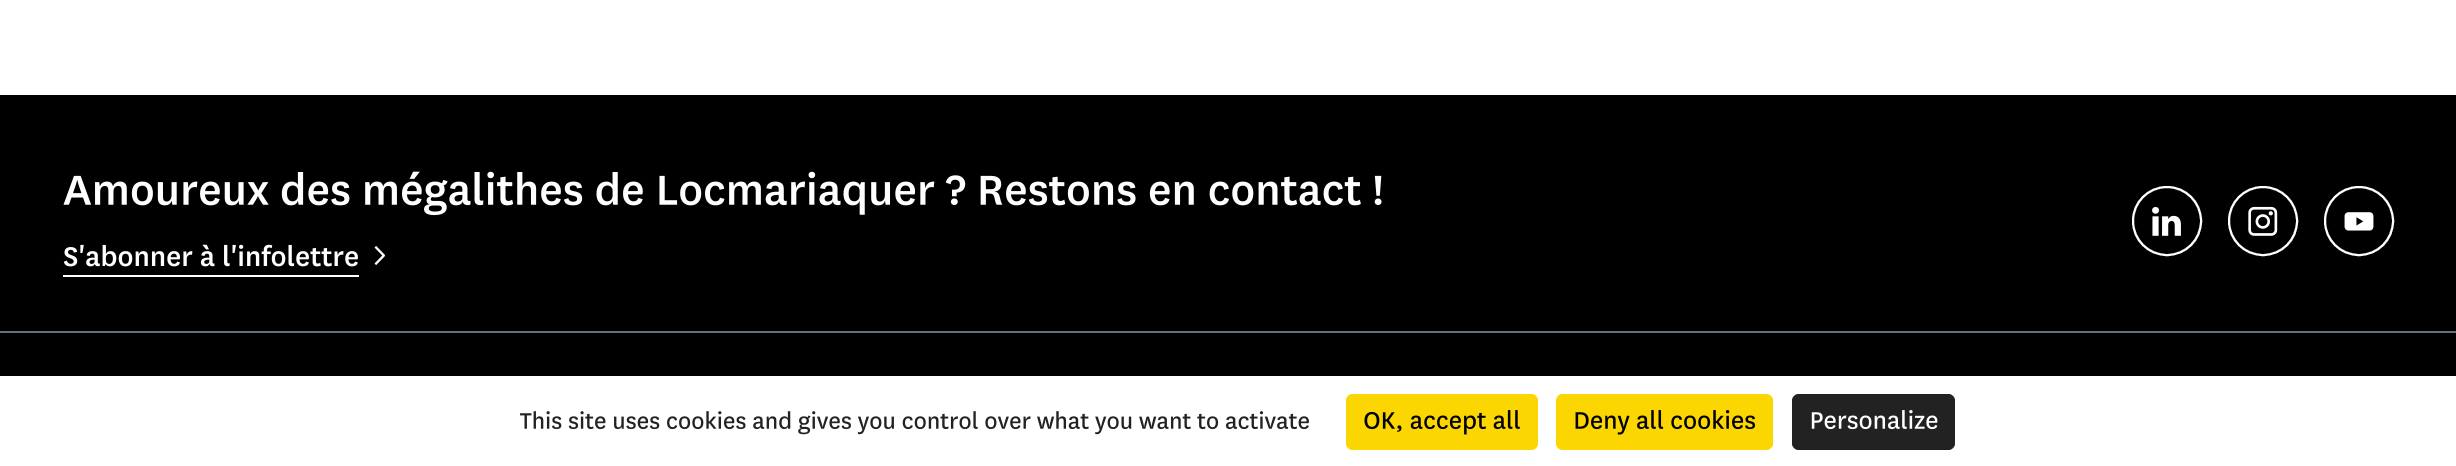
%!PS
<< /PageSize [2456 466] /PageUsesTransparency true >> setpagedevice
/rgb { 3 { 255 div 3 1 roll } repeat setrgbcolor } def
/alpha { dup .setfillconstantalpha .setstrokeconstantalpha } def
/circle { newpath 0 360 arc closepath } def
/roundrect { 5 dict begin { /r /h /w /y /x } { exch def } forall
  x r add y moveto x w add y 2 copy h add r arct x w add y h add x 1 index r arct
  x y h add x y r arct x y 2 copy exch w add exch r arct closepath end } def
/shadow { 12 dict begin { /a /b /q /h /w /y /x } { exch def } forall gsave /was 0 def
  9 -2 -9 { dup b mul 4 div /e exch def 1 sub .425 mul 2.718 exch exp 1 add a .99 .min exch div /now exch def
    1 1 now sub 1 was sub div sub alpha /was now def
    w h .min e 2 mul add 0 gt { x e sub y e sub w e 2 mul add h e 2 mul add
      q e add b .6 mul add w h .min 2 div e add .min 0 .max roundrect fill } if } for grestore end } def
/picture { 5 dict begin { /h /w /y /x /name } { exch def } forall
  gsave x y translate w h scale
  w h 8 [w 0 0 h 0 0] name (r) file false 3 colorimage grestore end } def
0 .pushpdf14devicefilter
0 466 translate 1 -1 scale
4 setmiterlimit
255 255 255 rgb
0 0 2456 466 rectfill
0 0 0 rgb
0 95 2456 281 rectfill
104 114 125 rgb
0 331 2456 2 rectfill
(img/1.rgb) 63 171 1319 45 picture
(img/2.rgb) 63 244 295 23 picture
(img/3.rgb) 374 246 11 19 picture
255 255 255 rgb
63 275 296 2 rectfill
2 setlinewidth
2167 221 34 circle stroke
(img/4.rgb) 2152 206 29 30 picture
2263 221 34 circle stroke
(img/5.rgb) 2248 206 30 30 picture
2359 221 34 circle stroke
(img/6.rgb) 2344 212 30 19 picture
0 0 0 rgb
0 411 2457 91 0 52.5 0.25 shadow
255 255 255 rgb
0 376 2456 90 rectfill
(img/7.rgb) 520 411 789 24 picture
251 214 0 rgb
1346 394 192 56 7 roundrect fill
(img/8.rgb) 1364 410 156 25 picture
1556 394 217 56 7 roundrect fill
(img/9.rgb) 1575 410 180 25 picture
34 34 34 rgb
1792 394 163 56 7 roundrect fill
(img/10.rgb) 1811 410 127 20 picture
.poppdf14devicefilter showpage
